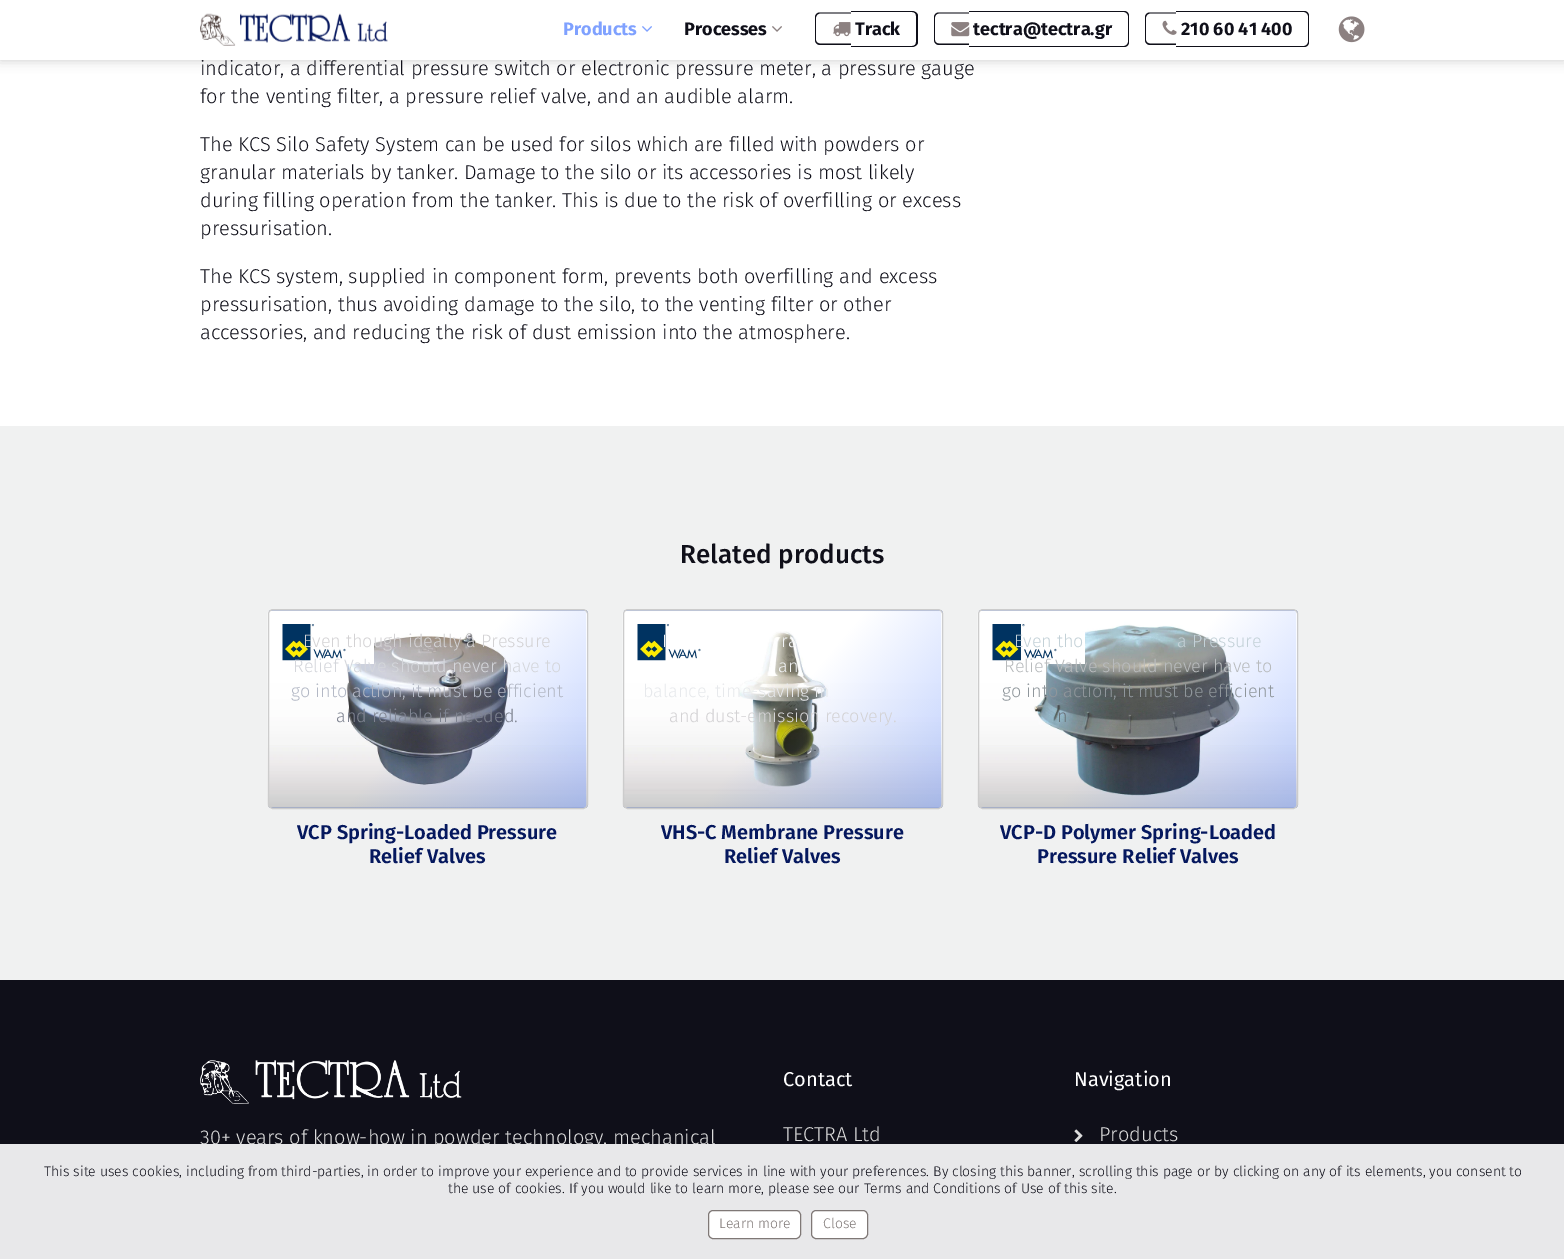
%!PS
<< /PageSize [1564 1259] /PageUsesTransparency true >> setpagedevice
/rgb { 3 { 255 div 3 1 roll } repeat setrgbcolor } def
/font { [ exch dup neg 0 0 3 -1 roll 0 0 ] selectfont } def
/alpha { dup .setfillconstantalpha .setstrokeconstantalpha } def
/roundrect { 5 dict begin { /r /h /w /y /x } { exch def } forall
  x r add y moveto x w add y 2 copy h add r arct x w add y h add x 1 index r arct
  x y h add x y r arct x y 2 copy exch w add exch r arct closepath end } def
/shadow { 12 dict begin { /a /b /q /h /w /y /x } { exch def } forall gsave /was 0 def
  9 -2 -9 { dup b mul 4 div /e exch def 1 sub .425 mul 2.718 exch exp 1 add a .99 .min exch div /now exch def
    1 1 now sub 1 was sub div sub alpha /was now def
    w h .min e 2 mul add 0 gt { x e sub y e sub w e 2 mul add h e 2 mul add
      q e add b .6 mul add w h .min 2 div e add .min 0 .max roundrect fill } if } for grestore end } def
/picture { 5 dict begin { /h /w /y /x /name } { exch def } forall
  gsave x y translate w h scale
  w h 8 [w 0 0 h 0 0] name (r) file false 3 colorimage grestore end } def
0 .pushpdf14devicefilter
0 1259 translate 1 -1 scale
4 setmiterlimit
255 255 255 rgb
0 0 1564 1259 rectfill
0 0 0 rgb
0 0 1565 60 0 6 0.2 shadow
240 241 241 rgb
0 426 1564 554 rectfill
(img/8.rgb) 267 610 321 198 picture
204 204 204 rgb
268.5 609.5 319 199 4.5 roundrect stroke
255 255 255 rgb
347 637 27 27 rectfill
(img/9.rgb) 282 624 64 37 picture
(img/10.rgb) 622 610 321 198 picture
204 204 204 rgb
623.5 609.5 319 199 4.5 roundrect stroke
(img/9.rgb) 637 624 64 37 picture
(img/11.rgb) 977 610 321 198 picture
978.5 609.5 319 199 4.5 roundrect stroke
255 255 255 rgb
1047 632 38 32 rectfill
(img/12.rgb) 992 624 65 37 picture
15 15 25 rgb
0 980 1564 164 rectfill
(img/13.rgb) 200 1060 262 44 picture
(img/14.rgb) 1074 1129 9 13 picture
/FiraSans-Light 20 font
200 75 moveto (indicator, a differential pressure switch or electronic pressure meter, a pressure gauge) show
255 255 255 rgb
0 0 1564 60 rectfill
(img/7.rgb) 1338 16 27 27 picture
15 15 25 rgb
1176 11 moveto 1304 11 lineto 1307 11 1309 13 1309 16 curveto 1309 42 lineto 1309 45 1307 47 1304 47 curveto 1176 47 lineto closepath 1176 12 moveto 1304 12 lineto 1306 12 1308 14 1308 16 curveto 1308 42 lineto 1308 44 1306 46 1304 46 curveto 1176 46 lineto closepath eofill
/FiraSans-Bold 18 font
1181 35 moveto (210 60 41 400) show
1150 12.5 moveto 1176 12.5 lineto 1176 45 lineto 1150 45 lineto 1147 45 1145 42.5 1145 40 curveto 1145 17.5 lineto 1145 14.5 1147 12.5 1150 12.5 curveto closepath 1150 13.5 moveto 1176 13.5 lineto 1176 43.5 lineto 1150 43.5 lineto 1148 43.5 1146 42 1146 40 curveto 1146 17.5 lineto 1146 15.5 1148 13.5 1150 13.5 curveto closepath eofill
(img/6.rgb) 1162 20 15 15 picture
969 11 moveto 1124 11 lineto 1127 11 1129 13 1129 16 curveto 1129 42 lineto 1129 45 1127 47 1124 47 curveto 969 47 lineto closepath 969 12 moveto 1124 12 lineto 1126 12 1128 14 1128 16 curveto 1128 42 lineto 1128 44 1126 46 1124 46 curveto 969 46 lineto closepath eofill
973 35 moveto (tectra@tectra.gr) show
939 12.5 moveto 969 12.5 lineto 969 45 lineto 939 45 lineto 936 45 934 42.5 934 40 curveto 934 17.5 lineto 934 14.5 936 12.5 939 12.5 curveto closepath 939 13.5 moveto 969 13.5 lineto 969 43.5 lineto 939 43.5 lineto 936.5 43.5 935 42 935 40 curveto 935 17.5 lineto 935 15.5 936.5 13.5 939 13.5 curveto closepath eofill
(img/5.rgb) 951 22 19 15 picture
851 11 moveto 912 11 lineto 915 11 918 13 918 16 curveto 918 42 lineto 918 45 915 47 912 47 curveto 851 47 lineto closepath 851 12 moveto 912 12 lineto 915 12 916 14 916 16 curveto 916 42 lineto 916 44 915 46 912 46 curveto 851 46 lineto closepath eofill
855 35 moveto (Track) show
820 12.5 moveto 851 12.5 lineto 851 45 lineto 820 45 lineto 817 45 815 42.5 815 40 curveto 815 17.5 lineto 815 14.5 817 12.5 820 12.5 curveto closepath 820 13.5 moveto 851 13.5 lineto 851 43.5 lineto 820 43.5 lineto 818 43.5 816 42 816 40 curveto 816 17.5 lineto 816 15.5 818 13.5 820 13.5 curveto closepath eofill
(img/4.rgb) 833 22 18 15 picture
(img/3.rgb) 772 26 10 6 picture
684 35 moveto (Processes) show
(img/2.rgb) 642 26 10 6 picture
127 161 255 rgb
563 35 moveto (Products) show
(img/1.rgb) 200 13 188 33 picture
/FiraSans-Light 20 font
15 15 25 rgb
[
  [(for the venting filter, a pressure relief valve, and an audible alarm.) 200 103]
  [(The KCS Silo Safety System can be used for silos which are filled with powders or) 200 151]
  [(granular materials by tanker. Damage to the silo or its accessories is most likely) 200 179]
  [(during filling operation from the tanker. This is due to the risk of overfilling or excess) 200 207]
  [(pressurisation.) 200 235]
  [(The KCS system, supplied in component form, prevents both overfilling and excess) 200 283]
  [(pressurisation, thus avoiding damage to the silo, to the venting filter or other) 200 311]
  [(accessories, and reducing the risk of dust emission into the atmosphere.) 200 339]
] { aload pop moveto show } forall
/FiraSans-Medium 26 font
680 563 moveto (Related products) show
/FiraSans-Light 18 font
211 210 212 rgb
303 647 moveto (Even though ideally a Pressure) show
212 214 219 rgb
293 672 moveto (Relief Valve should never have to) show
179 184 197 rgb
291 697 moveto (go into action, it must be efficient) show
127 132 145 rgb
336 722 moveto (and reliable if needed.) show
/FiraSans-SemiBold 20 font
5 24 94 rgb
297 839 moveto (VCP Spring-Loaded Pressure) show
369 863 moveto (Relief Valves) show
/FiraSans-Light 18 font
242 244 246 rgb
[
  [(I) 662 647]
  [(ra) 781 647]
  [(an) 778 672]
] { aload pop moveto show } forall
231 233 236 rgb
643 697 moveto (balance, time-saving m) show
211 210 212 rgb
669 722 moveto (and dust-emission recovery.) show
/FiraSans-SemiBold 20 font
5 24 94 rgb
661 839 moveto (VHS-C Membrane Pressure) show
724 863 moveto (Relief Valves) show
/FiraSans-Light 18 font
195 209 215 rgb
1014 647 moveto (Even tho) show
1177 647 moveto (a Pressure) show
184 187 189 rgb
1004 672 moveto (Relief Valve should never have to) show
143 150 155 rgb
1002 697 moveto (go into action, it must be efficient) show
104 114 119 rgb
1057 722 moveto (n) show
1225 722 moveto (.) show
/FiraSans-SemiBold 20 font
5 24 94 rgb
1000 839 moveto (VCP-D Polymer Spring-Loaded) show
1037 863 moveto (Pressure Relief Valves) show
/FiraSans-Light 20 font
221 221 221 rgb
200 1144 moveto (30+ years of know-how in powder technology, mechanical) show
/FiraSans-Regular 20 font
255 255 255 rgb
783 1086 moveto (Contact) show
/FiraSans-Light 20 font
221 221 221 rgb
783 1141 moveto (TECTRA Ltd) show
/FiraSans-Regular 20 font
255 255 255 rgb
1074 1086 moveto (Navigation) show
/FiraSans-Light 20 font
221 221 221 rgb
1099 1141 moveto (Products) show
232 232 234 rgb
0 1144 1564 115 rectfill
/FiraSans-Light 14 font
15 15 25 rgb
44 1176 moveto (This site uses cookies, including from third-parties, in order to improve your experience and to provide services in line with your preferences. By closing this banner, scrolling this page or by clicking on any of its elements, you consent to) show
448 1193 moveto (the use of cookies. If you would like to learn more, please see our Terms and Conditions of Use of this site.) show
255 255 255 rgb
708.5 1210.5 92 28 4.5 roundrect gsave fill grestore
127 120 118 rgb
stroke
719 1228 moveto (Learn more) show
255 255 255 rgb
811.5 1210.5 56 28 4.5 roundrect gsave fill grestore
127 120 118 rgb
stroke
823 1228 moveto (Close) show
.poppdf14devicefilter showpage
